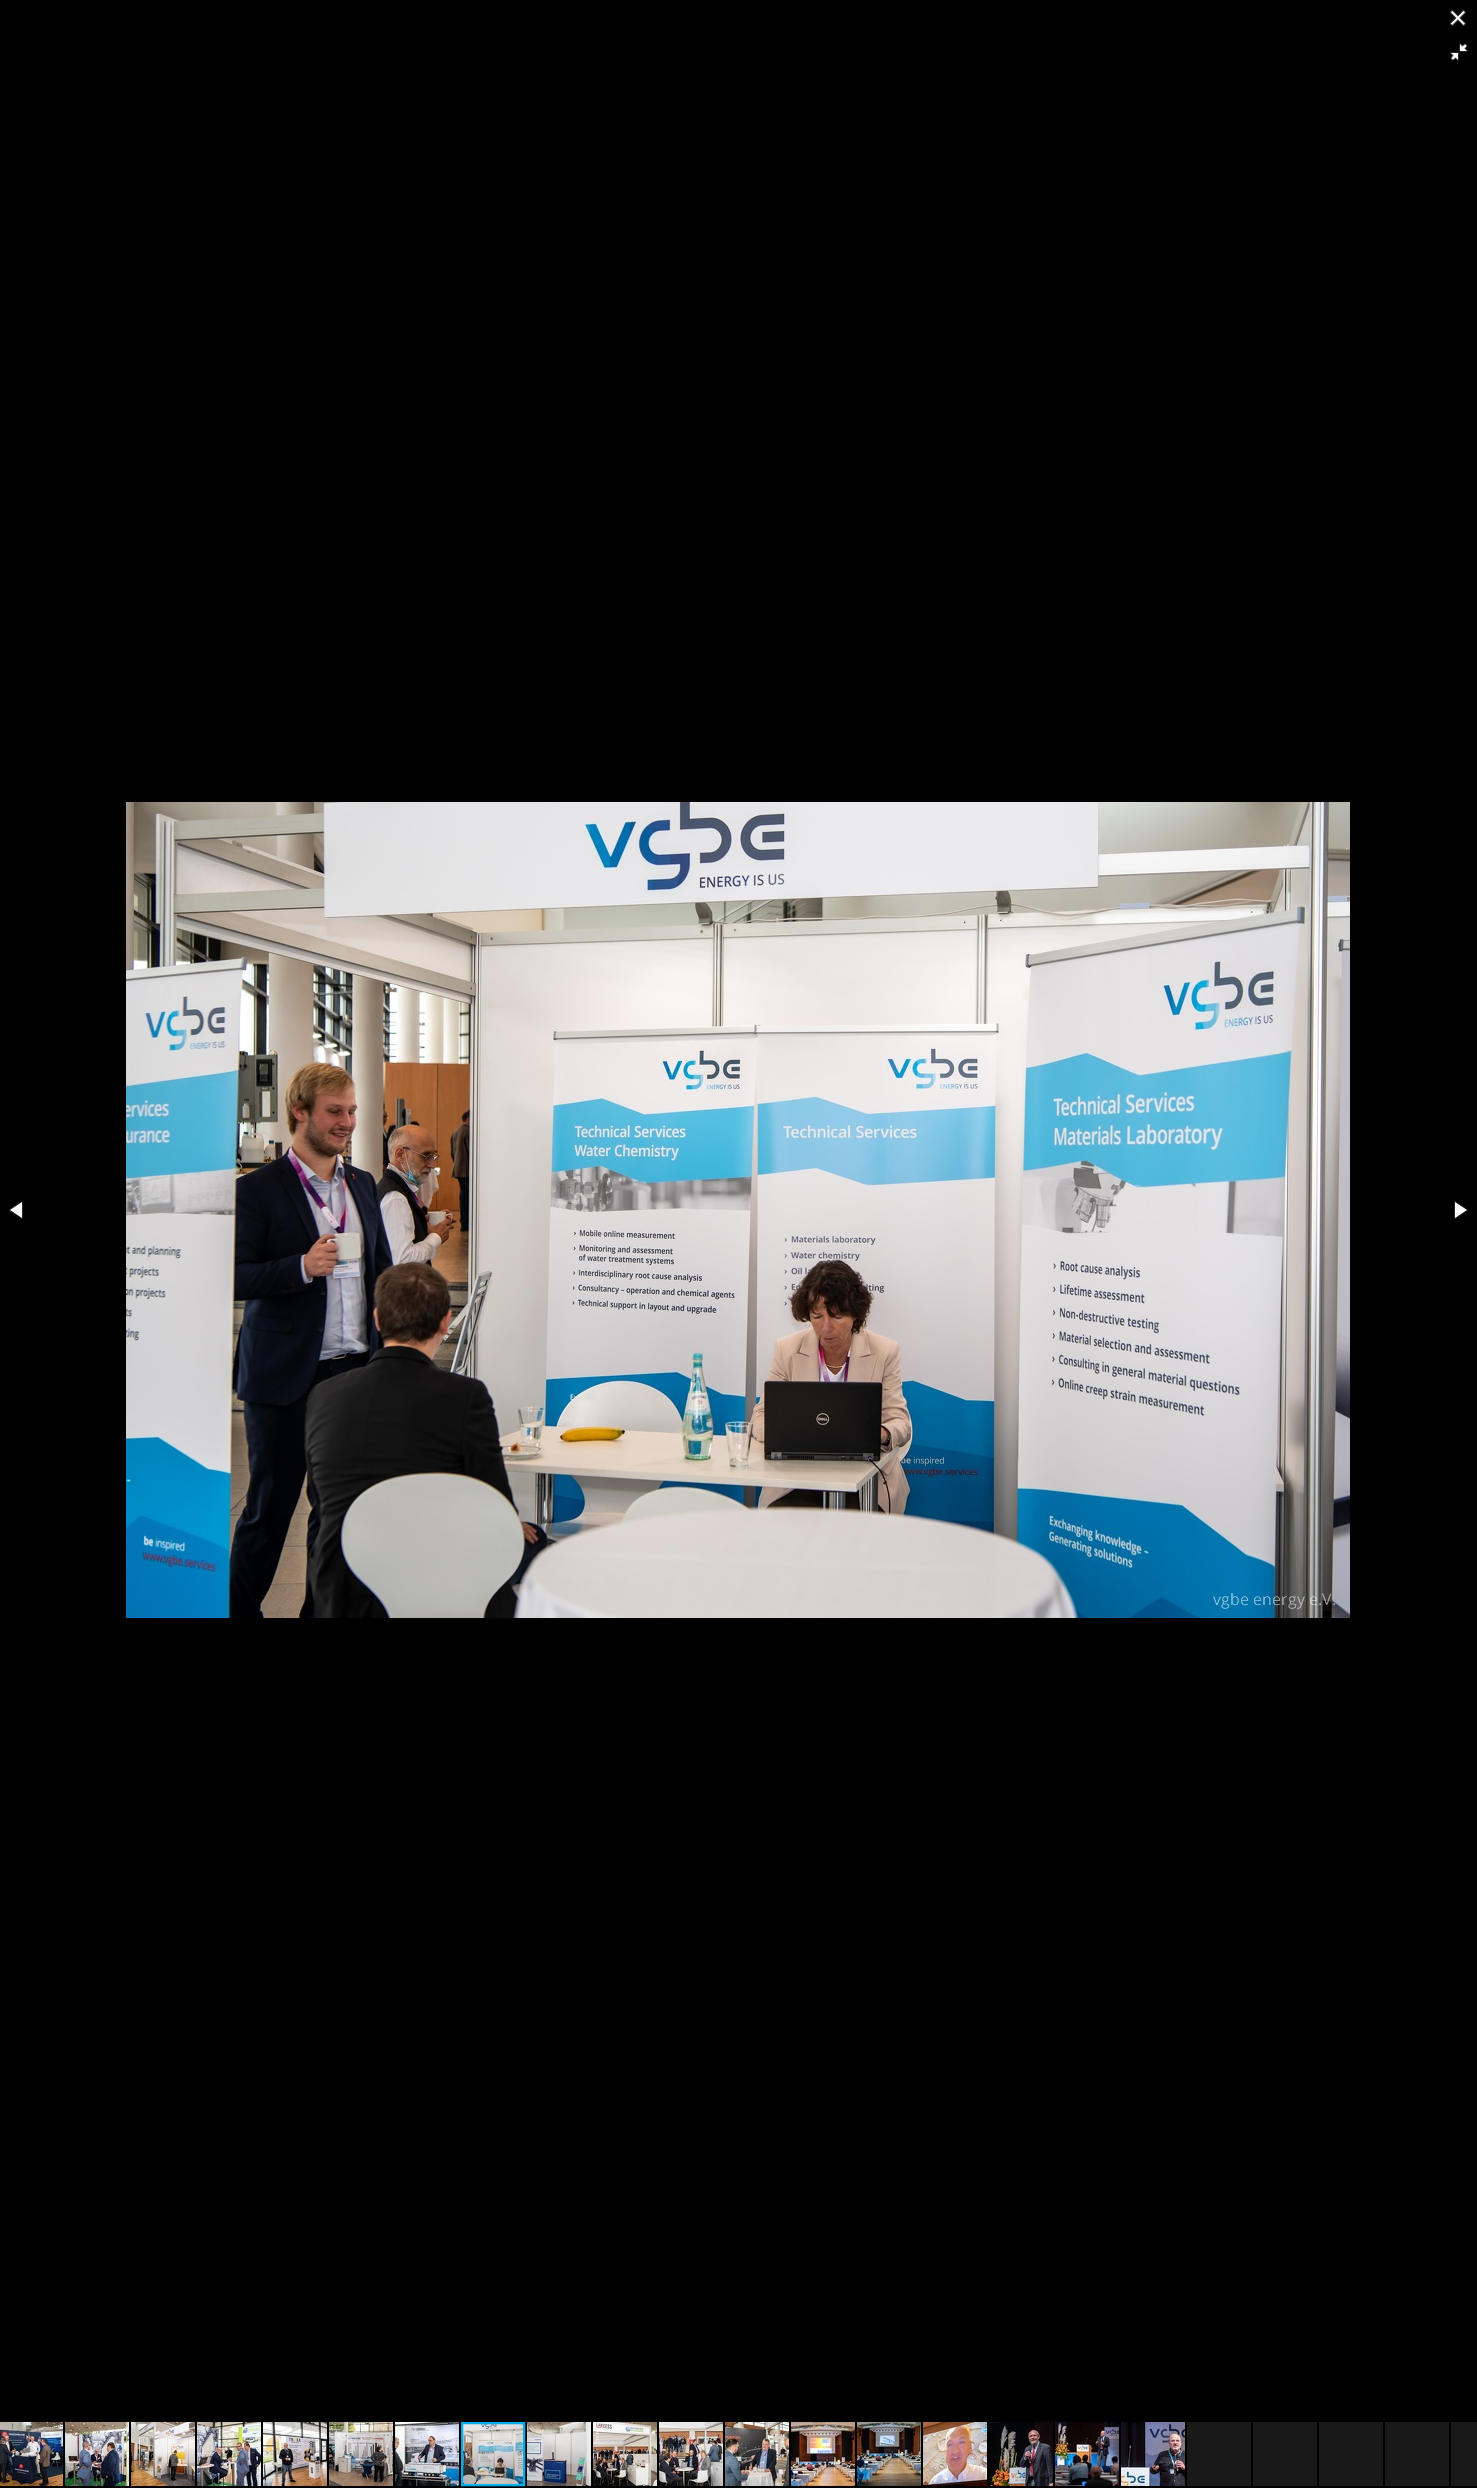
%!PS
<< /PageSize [1477 2488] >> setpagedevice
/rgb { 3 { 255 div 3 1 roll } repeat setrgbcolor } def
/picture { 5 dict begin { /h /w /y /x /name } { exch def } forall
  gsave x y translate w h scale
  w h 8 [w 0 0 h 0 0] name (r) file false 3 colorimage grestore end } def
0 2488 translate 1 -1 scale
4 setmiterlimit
0 0 0 rgb
0 0 1477 2488 rectfill
(img/1.rgb) 1450 10 16 16 picture
(img/2.rgb) 1450 43 18 18 picture
(img/3.rgb) 9 1201 14 18 picture
(img/4.rgb) 126 802 1224 816 picture
(img/5.rgb) 1454 1201 14 18 picture
(img/6.rgb) 0 2422 63 64 picture
(img/7.rgb) 65 2422 64 64 picture
(img/8.rgb) 131 2422 64 64 picture
(img/9.rgb) 197 2422 64 64 picture
(img/10.rgb) 263 2422 64 64 picture
(img/11.rgb) 329 2422 64 64 picture
(img/12.rgb) 395 2422 64 64 picture
(img/23.rgb) 463 2424 60 60 picture
0 175 234 rgb
2 setlinewidth
462 2423 62 62 rectstroke
(img/13.rgb) 527 2422 64 64 picture
(img/14.rgb) 593 2422 64 64 picture
(img/15.rgb) 659 2422 64 64 picture
(img/16.rgb) 725 2422 64 64 picture
(img/17.rgb) 791 2422 64 64 picture
(img/18.rgb) 857 2422 64 64 picture
(img/19.rgb) 923 2422 64 64 picture
(img/20.rgb) 989 2422 64 64 picture
(img/21.rgb) 1055 2422 64 64 picture
(img/22.rgb) 1121 2422 64 64 picture
[
  [1187 2422 64 64 25 25 25]
  [1253 2422 64 64 25 25 25]
  [1319 2422 64 64 25 25 25]
  [1385 2422 64 64 25 25 25]
  [1451 2422 26 64 25 25 25]
] { aload pop rgb rectfill } forall
showpage
